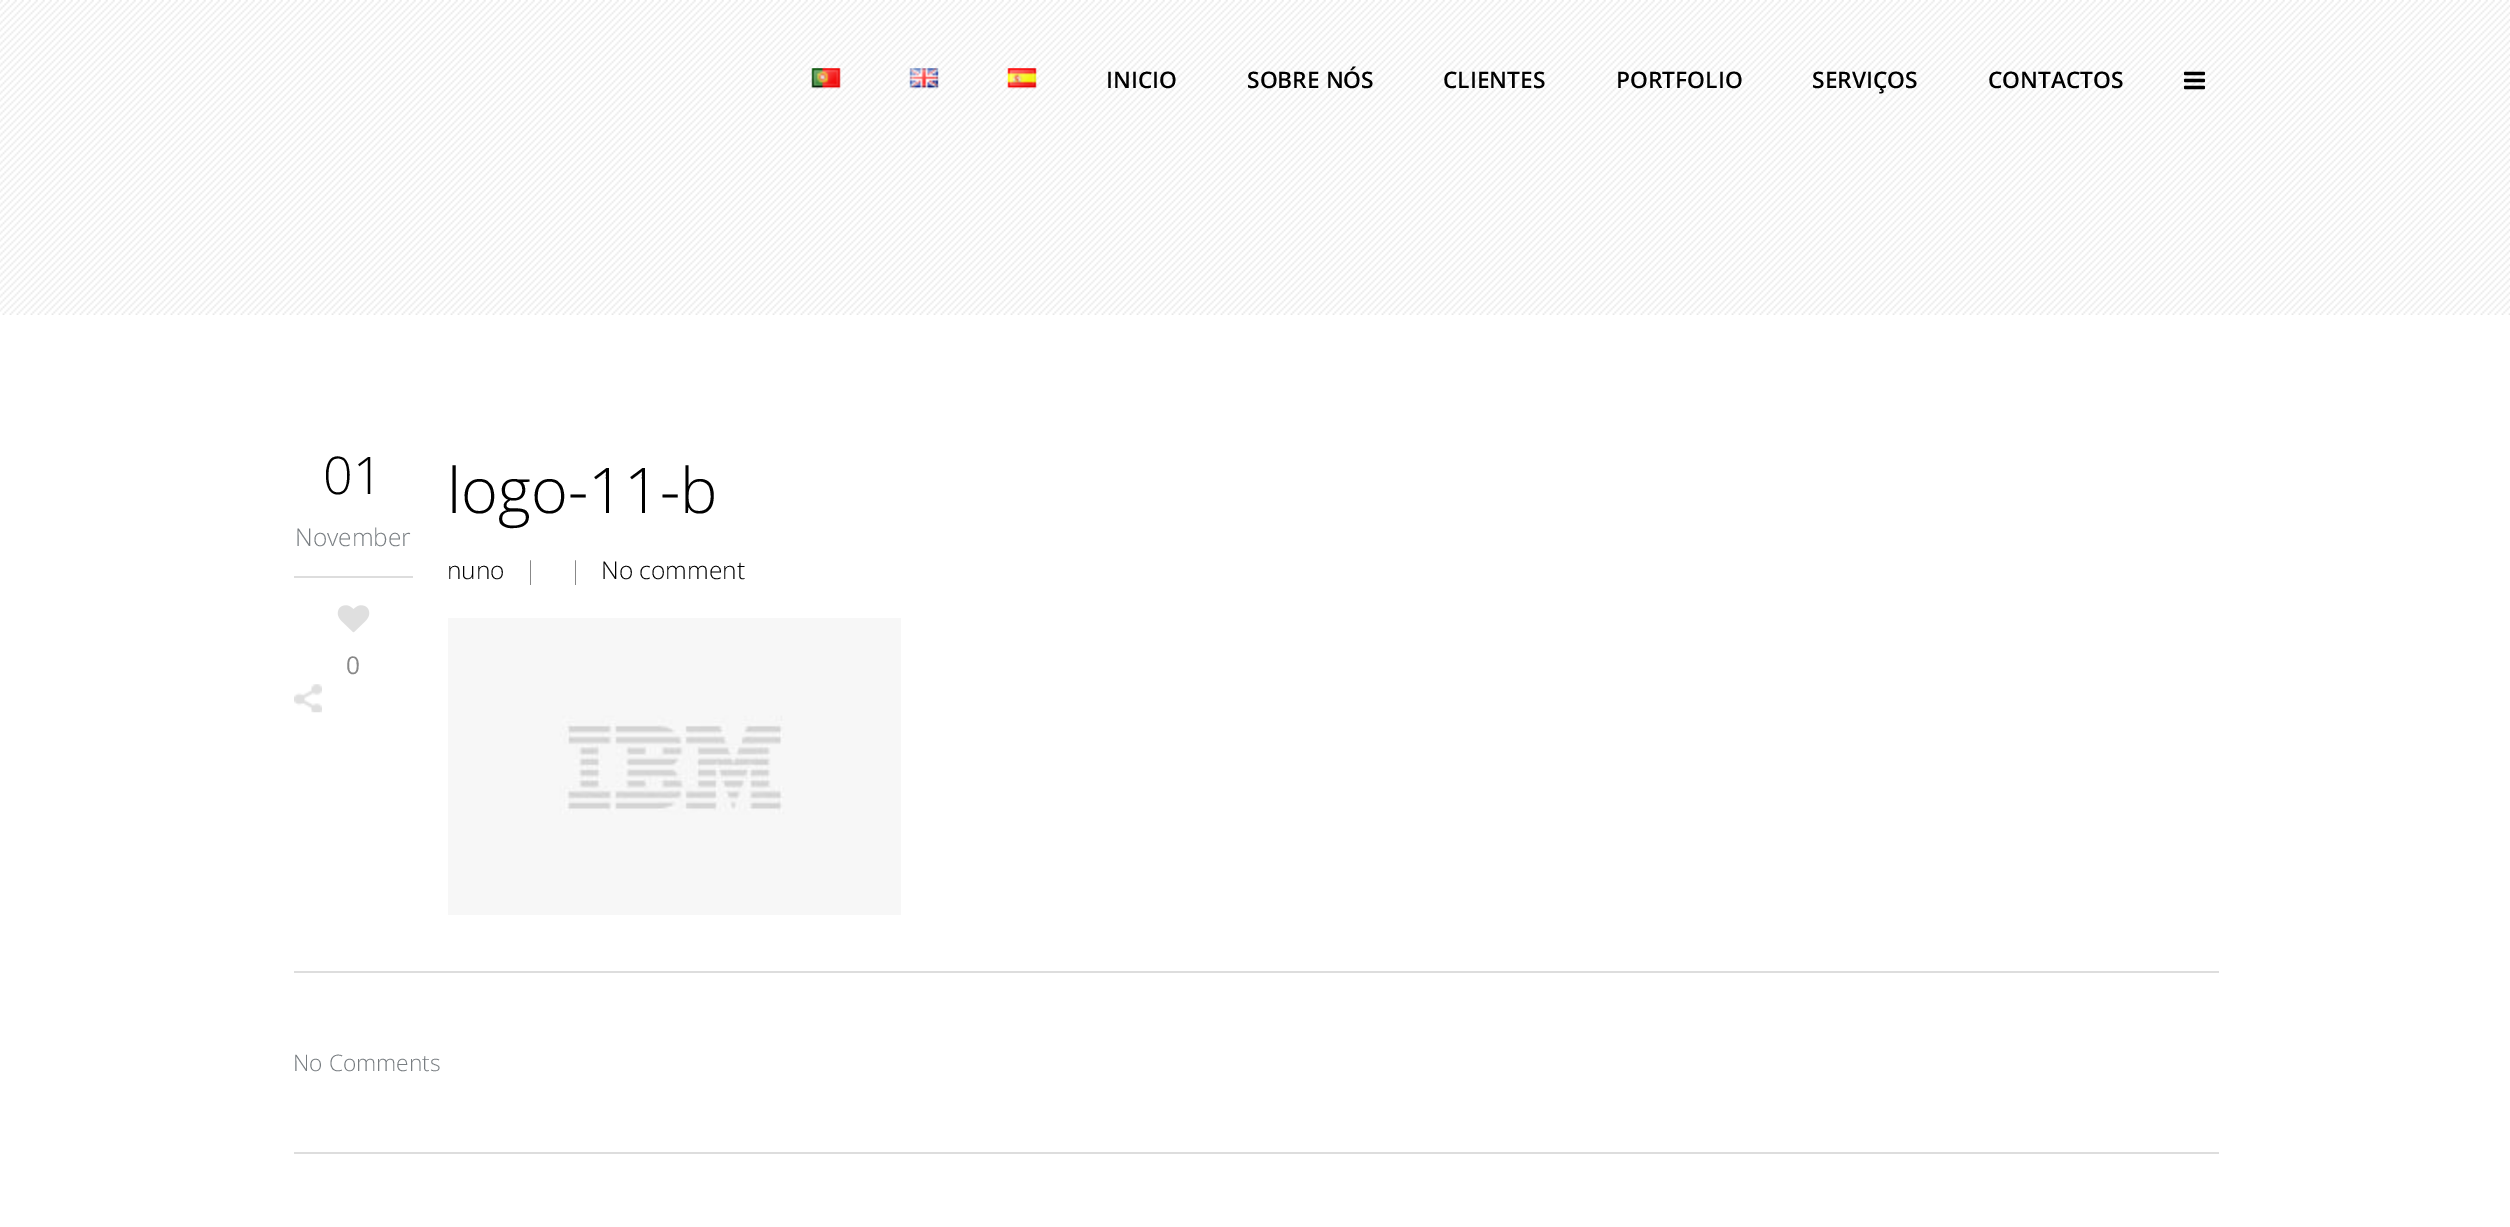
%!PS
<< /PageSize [2510 1227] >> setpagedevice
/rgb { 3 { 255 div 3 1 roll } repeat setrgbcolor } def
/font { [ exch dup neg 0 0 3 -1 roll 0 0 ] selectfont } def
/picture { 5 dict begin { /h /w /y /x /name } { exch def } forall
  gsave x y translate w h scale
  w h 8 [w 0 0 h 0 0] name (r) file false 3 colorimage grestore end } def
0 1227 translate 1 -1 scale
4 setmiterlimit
255 255 255 rgb
0 0 2510 1227 rectfill
(img/5.rgb) 0 0 2510 315 picture
(img/1.rgb) 811 68 30 21 picture
(img/2.rgb) 909 68 30 21 picture
(img/3.rgb) 1007 68 30 21 picture
(img/4.rgb) 2184 71 21 19 picture
221 221 221 rgb
294 576 119 2 rectfill
(img/6.rgb) 337 605 33 28 picture
(img/7.rgb) 294 684 28 29 picture
(img/8.rgb) 448 618 453 297 picture
294 971 1925 2 rectfill
294 1152 1925 2 rectfill
/OpenSans-SemiBold 22.75 font
0 0 0 rgb
[
  [(INICIO) 1106 88]
  [(SOBRE NÓS) 1247 88]
  [(CLIENTES) 1443 88]
  [(PORTFOLIO) 1616 88]
  [(SERVIÇOS) 1812 88]
  [(CONTACTOS) 1988 88]
] { aload pop moveto show } forall
/OpenSans-Light 52 font
323 494 moveto (01) show
/OpenSans-Light 24.5 font
120 125 129 rgb
295 546 moveto (November) show
/OpenSans-Regular 24.5 font
136 136 136 rgb
346 674 moveto (0) show
/OpenSans-Light 63 font
0 0 0 rgb
447 513 moveto (logo-11-b) show
/OpenSans-Light 24.5 font
447 579 moveto (nuno) show
136 136 136 rgb
524 579 moveto (|) show
569 579 moveto (|) show
0 0 0 rgb
601 579 moveto (No comment) show
/OpenSans-Light 22.75 font
120 125 129 rgb
293 1071 moveto (No Comments) show
showpage
